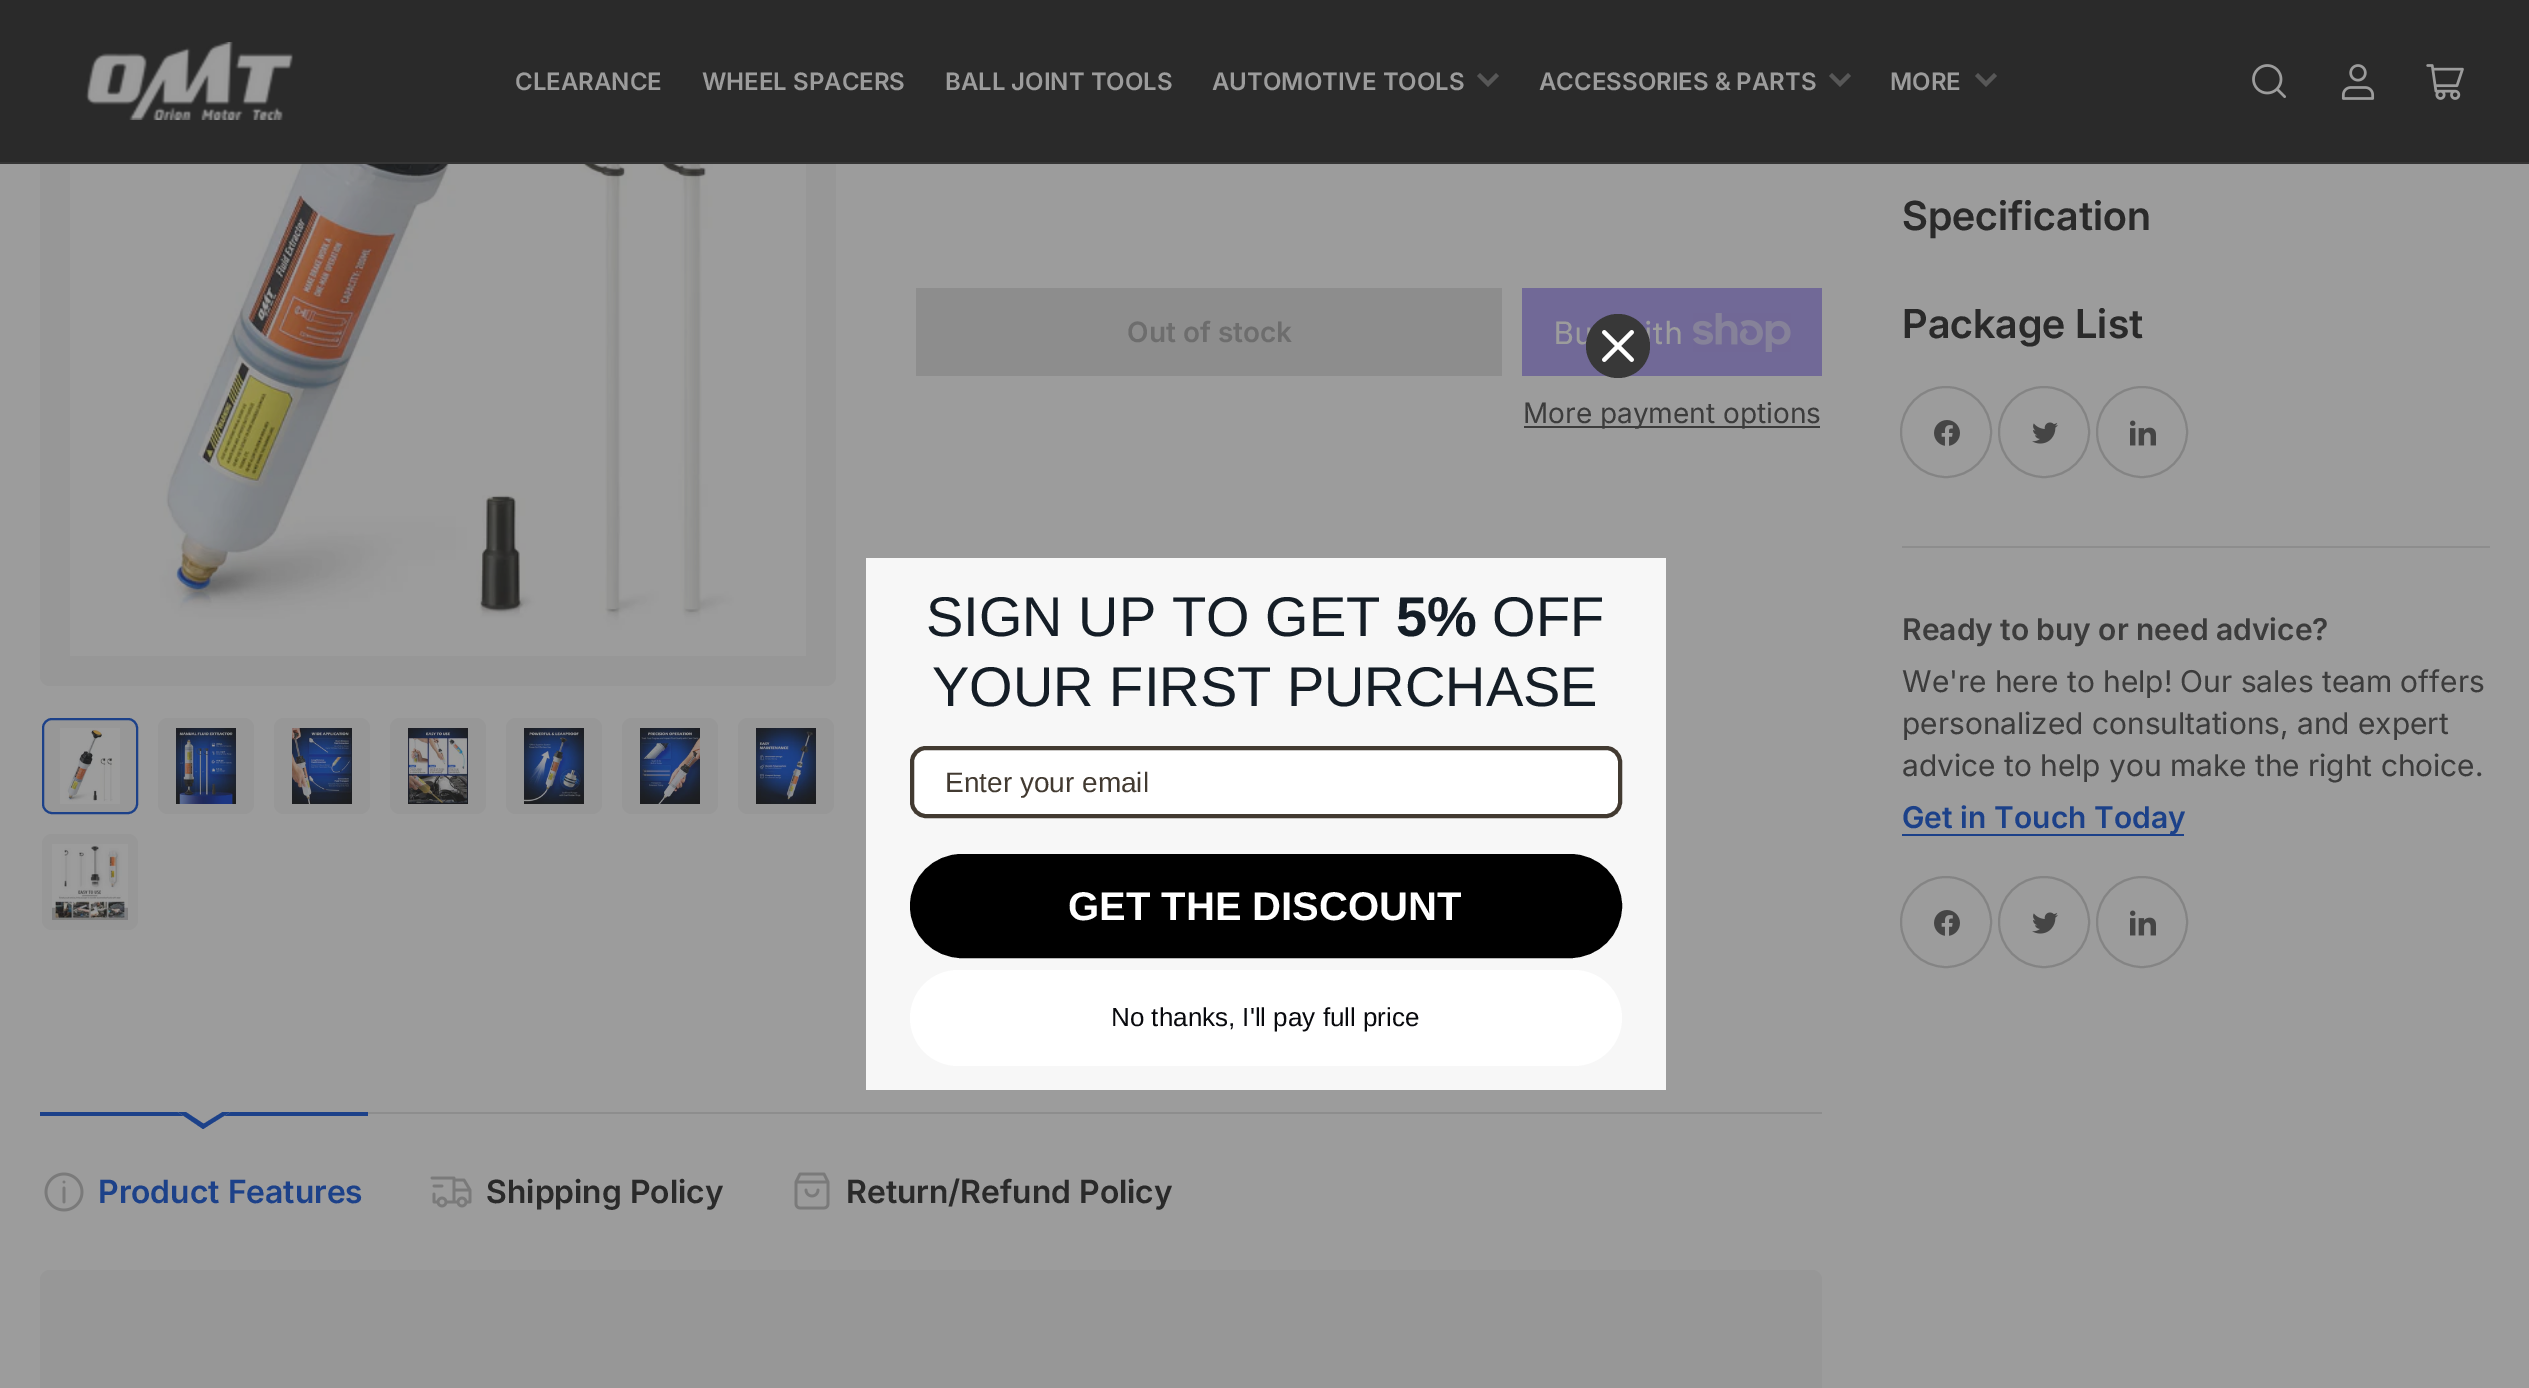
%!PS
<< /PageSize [2529 1388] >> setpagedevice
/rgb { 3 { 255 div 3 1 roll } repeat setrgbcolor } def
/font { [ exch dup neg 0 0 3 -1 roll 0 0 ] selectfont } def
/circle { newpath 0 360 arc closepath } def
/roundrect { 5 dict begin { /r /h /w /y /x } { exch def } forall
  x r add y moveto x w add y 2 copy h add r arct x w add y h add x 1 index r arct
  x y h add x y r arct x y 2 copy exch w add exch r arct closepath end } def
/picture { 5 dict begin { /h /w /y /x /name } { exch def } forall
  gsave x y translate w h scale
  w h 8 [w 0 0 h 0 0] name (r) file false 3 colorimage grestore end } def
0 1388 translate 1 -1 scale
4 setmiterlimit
156 156 156 rgb
0 0 2529 1388 rectfill
151 151 151 rgb
40 -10 796 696 10 roundrect fill
42 42 42 rgb
0 0 2529 162 rectfill
53 53 53 rgb
0 162 2529 2 rectfill
(img/1.rgb) 85 42 208 78 picture
87 87 87 rgb
4 setlinewidth
2 setlinecap
1496 76 moveto 1488 84 lineto 1480 76 lineto stroke
1848 76 moveto 1840 84 lineto 1832 76 lineto stroke
1994 76 moveto 1986 84 lineto 1978 76 lineto stroke
(img/2.rgb) 2252 64 34 34 picture
(img/3.rgb) 2341 64 34 36 picture
(img/4.rgb) 2426 64 38 36 picture
(img/5.rgb) 70 164 736 492 picture
151 151 151 rgb
43 719 94 94 9 roundrect gsave fill grestore
28 65 137 rgb
2 setlinewidth
0 setlinecap
stroke
(img/6.rgb) 60 728 60 76 picture
151 151 151 rgb
158 718 96 96 10 roundrect fill
(img/7.rgb) 176 728 60 76 picture
274 718 96 96 10 roundrect fill
(img/8.rgb) 292 728 60 76 picture
390 718 96 96 10 roundrect fill
(img/9.rgb) 408 728 60 76 picture
506 718 96 96 10 roundrect fill
(img/10.rgb) 524 728 60 76 picture
622 718 96 96 10 roundrect fill
(img/11.rgb) 640 728 60 76 picture
738 718 96 96 10 roundrect fill
(img/12.rgb) 756 728 60 76 picture
42 834 96 96 10 roundrect fill
(img/13.rgb) 52 844 76 76 picture
141 141 141 rgb
916 288 586 88 rectfill
113 105 151 rgb
1522 288 300 88 rectfill
(img/14.rgb) 1693 313 98 39 picture
60 60 60 rgb
1524 426 296 2 rectfill
132 132 132 rgb
1946 432 45 circle stroke
(img/15.rgb) 1934 420 26 26 picture
2044 432 45 circle stroke
(img/16.rgb) 2032 422 26 22 picture
2142 432 45 circle stroke
(img/17.rgb) 2130 420 26 26 picture
141 141 141 rgb
1902 546 588 2 rectfill
28 65 137 rgb
1902 834 282 2 rectfill
132 132 132 rgb
1946 922 45 circle stroke
(img/15.rgb) 1934 910 26 26 picture
2044 922 45 circle stroke
(img/16.rgb) 2032 912 26 22 picture
2142 922 45 circle stroke
(img/17.rgb) 2130 910 26 26 picture
141 141 141 rgb
368 1112 1454 2 rectfill
28 65 137 rgb
40 1112 328 4 rectfill
gsave
40 1112 328 108 rectclip
156 156 156 rgb
209 1060 moveto 259 1094 lineto 203 1129 lineto 153 1095 lineto closepath fill
28 65 137 rgb
255 1092 moveto 259 1094 lineto 203 1129 lineto 200 1126 lineto closepath fill
157 1093 moveto 207 1126 lineto 203 1129 lineto 153 1095 lineto closepath fill
grestore
(img/18.rgb) 44 1172 40 40 picture
(img/19.rgb) 430 1176 42 32 picture
(img/20.rgb) 794 1172 36 38 picture
151 151 151 rgb
40 1270 1782 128 10 roundrect fill
247 247 247 rgb
866 558 800 532 rectfill
255 255 255 rgb
912 748 708 68 14 roundrect gsave fill grestore
66 58 49 rgb
4 setlinewidth
stroke
0 0 0 rgb
912 856 708 100 50 roundrect gsave fill grestore
stroke
255 255 255 rgb
910 970 712 96 48 roundrect fill
/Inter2-SemiBold 24 font
156 156 156 rgb
[
  [(CLEARANCE) 515 90]
  [(WHEEL SPACERS) 702 90]
  [(BALL JOINT TOOLS) 945 90]
  [(AUTOMOTIVE TOOLS) 1212 90]
  [(ACCESSORIES & PARTS) 1539 90]
  [(MORE) 1890 90]
] { aload pop moveto show } forall
/Inter2-SemiBold 28 font
109 109 109 rgb
1127 342 moveto (Out of stock) show
/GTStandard-Regular 32 font
156 156 156 rgb
1553 344 moveto (Bu) show
1644 344 moveto (ith) show
/Inter-Regular 28 font
60 60 60 rgb
1523 423 moveto (More payment options) show
/Inter-SemiBold 40 font
42 42 42 rgb
1902 230 moveto (Specification) show
1902 338 moveto (Package List) show
/Inter2-SemiBold 30 font
60 60 60 rgb
1902 640 moveto -0.25 0 32 (Ready to buy or need advice?) widthshow
/Inter2-Regular 30 font
[
  [(We're here to help! Our sales team offers) 1902 692]
  [(personalized consultations, and expert) 1902 734]
  [(advice to help you make the right choice.) 1902 776]
] { aload pop moveto show } forall
/Inter2-SemiBold 30 font
28 65 137 rgb
1902 828 moveto (Get in Touch Today) show
/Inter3-SemiBold 32 font
98 1203 moveto (Product Features) show
42 42 42 rgb
486 1203 moveto (Shipping Policy) show
846 1203 moveto (Return/Refund Policy) show
56 56 56 rgb
1618 346 32 circle fill
(img/21.rgb) 1602 330 32 32 picture
/LiberationSans-Regular 56 font
20 29 38 rgb
926 636 moveto (SIGN UP TO GET) show
/LiberationSans-Bold 56 font
1396 636 moveto (5%) show
/LiberationSans-Regular 56 font
1492 636 moveto (OFF) show
932 706 moveto (YOUR FIRST PURCHASE) show
/LiberationSans-Regular 28 font
66 58 49 rgb
945 792 moveto (Enter your email) show
/LiberationSans-Bold 40 font
255 255 255 rgb
1068 920 moveto (GET THE DISCOUNT) show
/LiberationSans-Regular 26 font
8 9 13 rgb
1111 1026 moveto (No thanks, I'll pay full price) show
showpage
